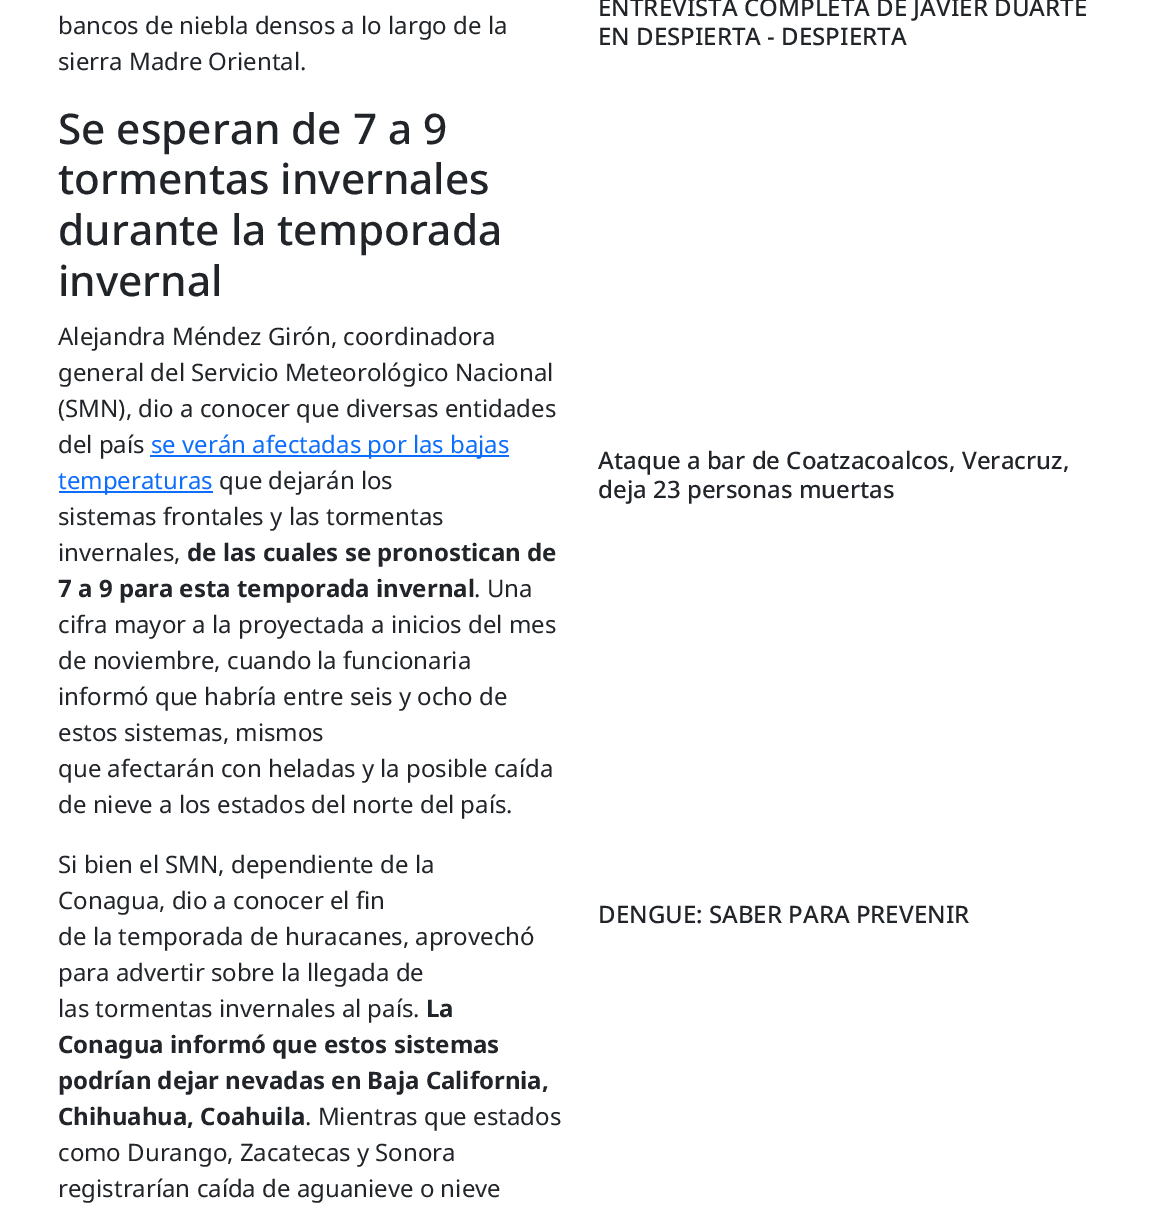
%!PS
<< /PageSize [1159 1215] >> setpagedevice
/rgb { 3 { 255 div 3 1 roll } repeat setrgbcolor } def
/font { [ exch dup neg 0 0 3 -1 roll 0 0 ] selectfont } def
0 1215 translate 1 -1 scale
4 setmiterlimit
255 255 255 rgb
0 0 1159 1215 rectfill
13 110 253 rgb
150 455 359 2 rectfill
59 491 154 2 rectfill
/NotoSans-Regular 24 font
33 37 41 rgb
58 34 moveto (bancos de niebla densos a lo largo de la) show
58 70 moveto (sierra Madre Oriental.) show
/NotoSans-Medium 42.25 font
[
  [(Se esperan de 7 a 9) 58 144]
  [(tormentas invernales) 58 194]
  [(durante la temporada) 58 245]
  [(invernal) 58 296]
] { aload pop moveto show } forall
/NotoSans-Regular 24 font
[
  [(Alejandra Méndez Girón, coordinadora) 58 345]
  [(general del Servicio Meteorológico Nacional) 58 381]
  [(\(SMN\), dio a conocer que diversas entidades) 58 417]
  [(del país) 58 453]
] { aload pop moveto show } forall
13 110 253 rgb
151 453 moveto (se verán afectadas por las bajas) show
58 489 moveto (temperaturas) show
33 37 41 rgb
[
  [(que dejarán los) 219 489]
  [(sistemas frontales y las tormentas) 58 525]
  [(invernales,) 58 561]
] { aload pop moveto show } forall
/NotoSans-Bold 24 font
187 561 moveto (de las cuales se pronostican de) show
58 597 moveto (7 a 9 para esta temporada invernal) show
/NotoSans-Regular 24 font
[
  [(. Una) 474 597]
  [(cifra mayor a la proyectada a inicios del mes) 58 633]
  [(de noviembre, cuando la funcionaria) 58 669]
  [(informó que habría entre seis y ocho de) 58 705]
  [(estos sistemas, mismos) 58 741]
  [(que afectarán con heladas y la posible caída) 58 777]
  [(de nieve a los estados del norte del país.) 58 813]
  [(Si bien el SMN, dependiente de la) 58 873]
  [(Conagua, dio a conocer el fin) 58 909]
  [(de la temporada de huracanes, aprovechó) 58 945]
  [(para advertir sobre la llegada de) 58 981]
  [(las tormentas invernales al país.) 58 1017]
] { aload pop moveto show } forall
/NotoSans-Bold 24 font
[
  [(La) 426 1017]
  [(Conagua informó que estos sistemas) 58 1053]
  [(podrían dejar nevadas en Baja California,) 58 1089]
  [(Chihuahua, Coahuila) 58 1125]
] { aload pop moveto show } forall
/NotoSans-Regular 24 font
[
  [(. Mientras que estados) 305 1125]
  [(como Durango, Zacatecas y Sonora) 58 1161]
  [(registrarían caída de aguanieve o nieve) 58 1197]
] { aload pop moveto show } forall
/NotoSans-Medium 24 font
[
  [(ENTREVISTA COMPLETA DE JAVIER DUARTE) 598 16]
  [(EN DESPIERTA - DESPIERTA) 598 45]
  [(Ataque a bar de Coatzacoalcos, Veracruz,) 598 469]
  [(deja 23 personas muertas) 598 498]
  [(DENGUE: SABER PARA PREVENIR) 598 923]
] { aload pop moveto show } forall
showpage
